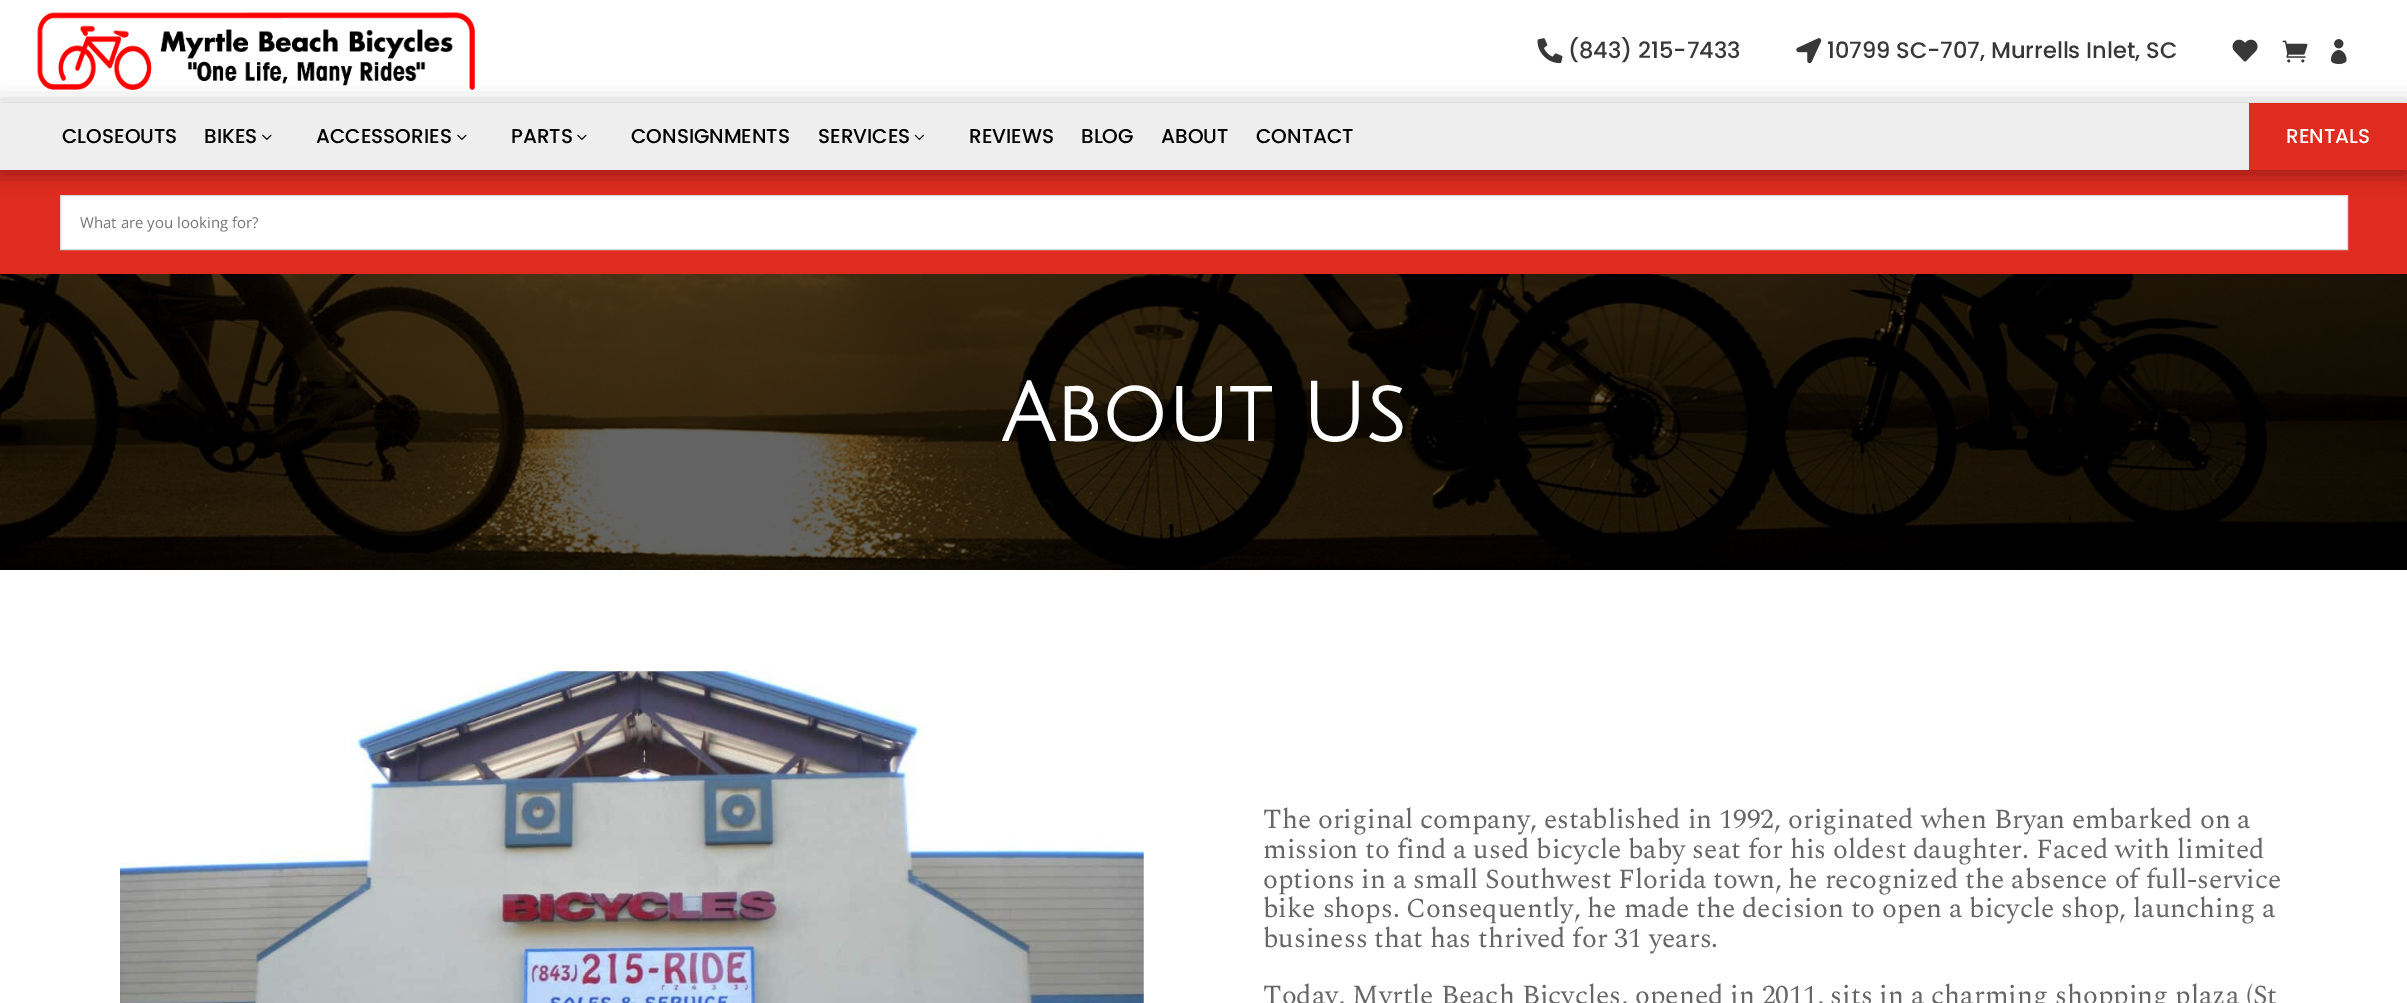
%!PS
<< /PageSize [2407 1003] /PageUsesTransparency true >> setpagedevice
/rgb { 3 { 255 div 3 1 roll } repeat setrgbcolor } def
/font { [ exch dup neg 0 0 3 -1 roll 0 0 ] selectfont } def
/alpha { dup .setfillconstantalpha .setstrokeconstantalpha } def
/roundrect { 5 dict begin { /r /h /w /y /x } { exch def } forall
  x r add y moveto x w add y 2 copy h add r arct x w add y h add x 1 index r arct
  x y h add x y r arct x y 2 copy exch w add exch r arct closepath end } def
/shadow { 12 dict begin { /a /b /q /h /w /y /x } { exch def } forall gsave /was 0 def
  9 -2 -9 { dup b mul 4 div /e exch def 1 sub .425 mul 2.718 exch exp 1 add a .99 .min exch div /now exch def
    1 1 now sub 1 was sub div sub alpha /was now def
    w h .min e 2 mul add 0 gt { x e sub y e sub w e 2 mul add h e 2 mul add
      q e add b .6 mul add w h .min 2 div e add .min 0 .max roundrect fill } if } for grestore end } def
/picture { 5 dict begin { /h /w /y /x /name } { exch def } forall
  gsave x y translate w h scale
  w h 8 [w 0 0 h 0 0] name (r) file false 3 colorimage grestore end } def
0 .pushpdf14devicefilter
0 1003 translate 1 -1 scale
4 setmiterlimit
255 255 255 rgb
0 0 2407 1003 rectfill
224 43 32 rgb
0 170 2407 104 rectfill
255 255 255 rgb
60.5 195.5 moveto 2347.5 195.5 lineto 2347.5 249.5 lineto 60.5 249.5 lineto closepath gsave fill grestore
216 216 216 rgb
stroke
gsave
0 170 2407 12 rectclip
0 0 0 rgb
0 3 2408 170 0 11 0.1 shadow
grestore
(img/1.rgb) 37 12 438 78 picture
(img/2.rgb) 1537 38 26 26 picture
(img/3.rgb) 1796 38 26 26 picture
(img/4.rgb) 2232 39 26 23 picture
(img/5.rgb) 2282 40 26 23 picture
(img/6.rgb) 2330 39 17 26 picture
238 238 238 rgb
0 103 2249 67 rectfill
gsave
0 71 moveto 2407 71 lineto 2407 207 lineto 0 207 lineto closepath 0 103 moveto 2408 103 lineto 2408 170 lineto 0 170 lineto closepath eoclip newpath
0 0 0 rgb
0 105 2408 68 0 11 0.3 shadow
grestore
(img/7.rgb) 262 134 10 6 picture
(img/7.rgb) 457 134 10 6 picture
(img/7.rgb) 577 134 10 6 picture
(img/8.rgb) 914 134 10 6 picture
224 43 32 rgb
2249 103 158 67 rectfill
(img/9.rgb) 0 274 2407 296 picture
(img/10.rgb) 120 671 1024 332 picture
/Poppins-Medium 22.5 font
56 56 56 rgb
1568 58 moveto (\(843\) 215-7433) show
1827 58 moveto (10799 SC-707, Murrells Inlet, SC) show
/Poppins-Medium 20 font
0 0 0 rgb
[
  [(CLOSEOUTS) 62 143]
  [(BIKES) 204 143]
  [(ACCESSORIES) 316 143]
  [(PARTS) 511 143]
  [(CONSIGNMENTS) 631 143]
  [(SERVICES) 818 143]
  [(REVIEWS) 969 143]
  [(BLOG) 1081 143]
  [(ABOUT) 1161 143]
  [(CONTACT) 1256 143]
] { aload pop moveto show } forall
255 255 255 rgb
2286 143 moveto (RENTALS) show
/OpenSans-Regular 15 font
117 117 117 rgb
80 228 moveto (What are you looking for?) show
/JuliusSansOne-Bold 81.25 font
255 255 255 rgb
1001 441 moveto (About Us) show
/Spectral-Regular 27.5 font
102 102 102 rgb
[
  [(The original company, established in 1992, originated when Bryan embarked on a) 1263 828]
  [(mission to find a used bicycle baby seat for his oldest daughter. Faced with limited) 1263 858]
  [(options in a small Southwest Florida town, he recognized the absence of full-service) 1263 888]
  [(bike shops. Consequently, he made the decision to open a bicycle shop, launching a) 1263 917]
  [(business that has thrived for 31 years.) 1263 947]
  [(Today, Myrtle Beach Bicycles, opened in 2011, sits in a charming shopping plaza \(St) 1263 1004]
] { aload pop moveto show } forall
.poppdf14devicefilter showpage
